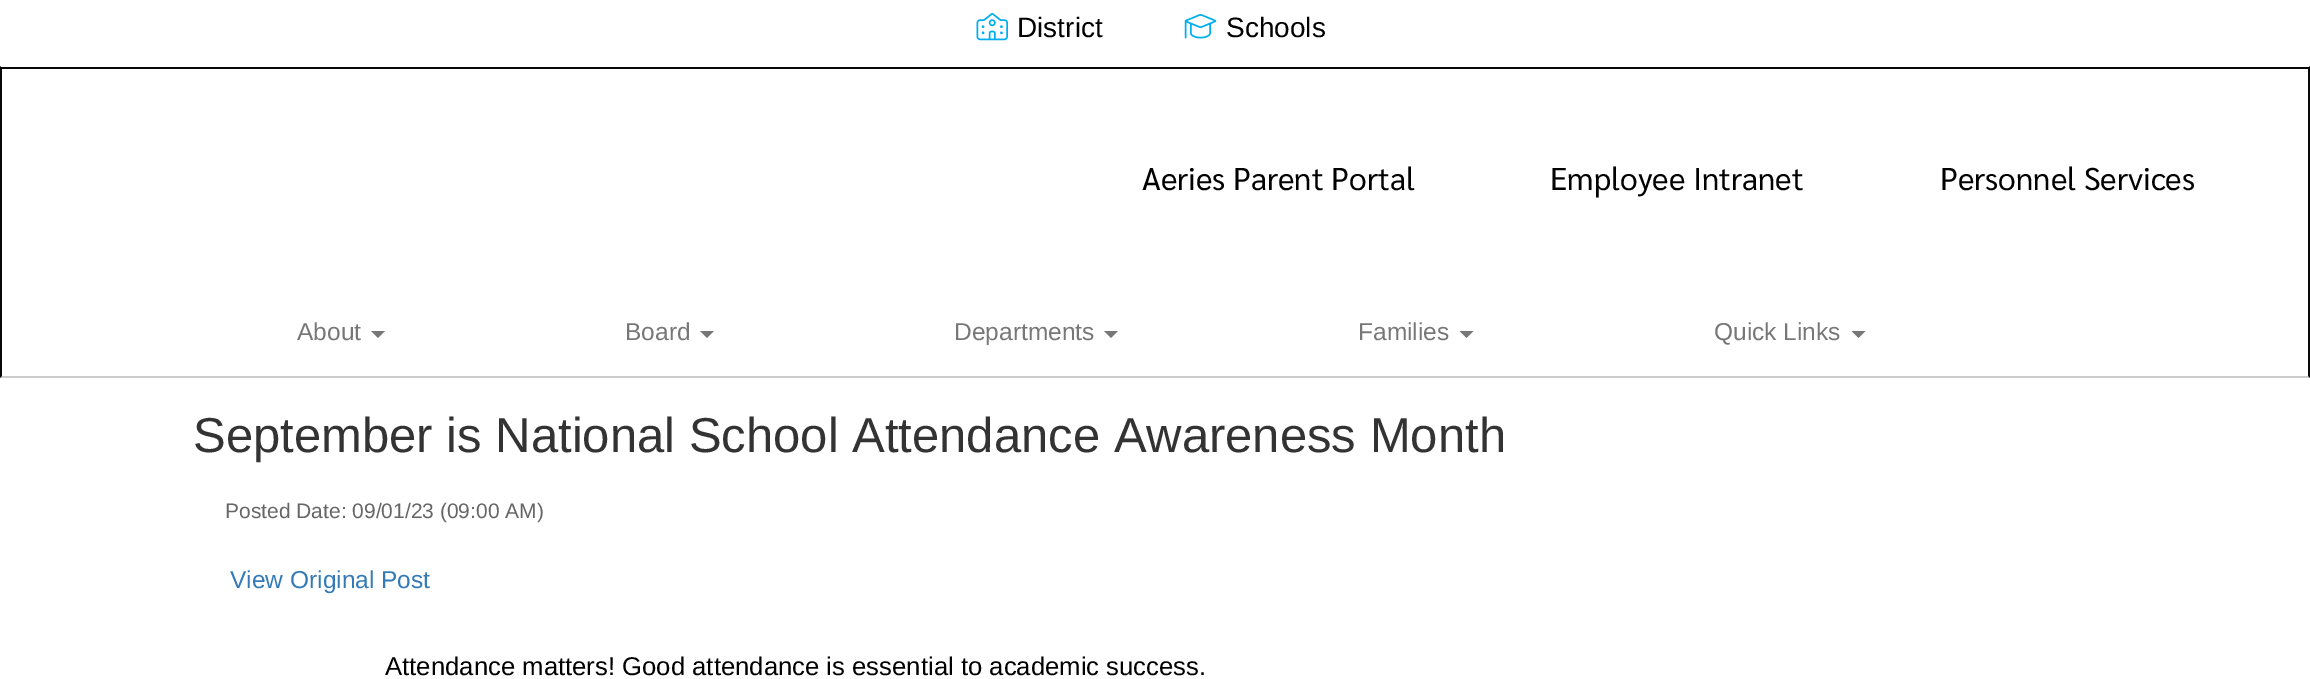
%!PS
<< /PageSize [2310 679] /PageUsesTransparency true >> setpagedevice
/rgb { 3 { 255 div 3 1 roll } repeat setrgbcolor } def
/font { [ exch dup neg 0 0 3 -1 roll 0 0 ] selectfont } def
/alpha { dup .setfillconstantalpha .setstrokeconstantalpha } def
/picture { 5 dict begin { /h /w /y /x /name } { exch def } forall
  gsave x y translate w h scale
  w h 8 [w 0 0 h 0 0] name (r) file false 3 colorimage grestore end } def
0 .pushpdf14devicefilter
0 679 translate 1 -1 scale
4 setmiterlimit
255 255 255 rgb
0 0 2310 679 rectfill
(img/1.rgb) 976 12 32 29 picture
(img/2.rgb) 1184 14 33 25 picture
8 8 8 rgb
0 67 2310 2 rectfill
2310 66 moveto 2310 378 lineto 2308 376 lineto 2308 68 lineto closepath fill
0.2 alpha
0 0 0 rgb
2310 378 moveto 0 378 lineto 2 376 lineto 2308 376 lineto closepath fill
1 alpha
8 8 8 rgb
0 378 moveto 0 66 lineto 2 68 lineto 2 376 lineto closepath fill
119 119 119 rgb
371 331 moveto 385 331 lineto 378 338 lineto closepath fill
700 331 moveto 714 331 lineto 707 338 lineto closepath fill
1104 331 moveto 1118 331 lineto 1111 338 lineto closepath fill
1459.5 331 moveto 1473.5 331 lineto 1466.5 338 lineto closepath fill
1851.5 331 moveto 1865.5 331 lineto 1858.5 338 lineto closepath fill
/LiberationSans-Regular 28 font
0 0 0 rgb
1017 37 moveto (District) show
1226 37 moveto (Schools) show
/Sarabun-Regular 31.5 font
[
  [(Aeries Parent Portal) 1142 190]
  [(Employee Intranet) 1550 190]
  [(Personnel Services) 1940 190]
] { aload pop moveto show } forall
/LiberationSans-Regular 24.5 font
119 119 119 rgb
[
  [(About) 297 340]
  [(Board) 625 340]
  [(Departments) 954 340]
  [(Families) 1358 340]
  [(Quick Links) 1714 340]
] { aload pop moveto show } forall
/LiberationSans-Regular 49 font
51 51 51 rgb
193 452 moveto (September is National School Attendance Awareness Month) show
/LiberationSans-Regular 21 font
102 102 102 rgb
225 518 moveto (Posted Date: 09/01/23 \(09:00 AM\)) show
/LiberationSans-Regular 24.5 font
51 122 183 rgb
230 588 moveto (View Original Post) show
/LiberationSans-Regular 25.7 font
0 0 0 rgb
385 675 moveto (Attendance matters! Good attendance is essential to academic success.) show
.poppdf14devicefilter showpage
